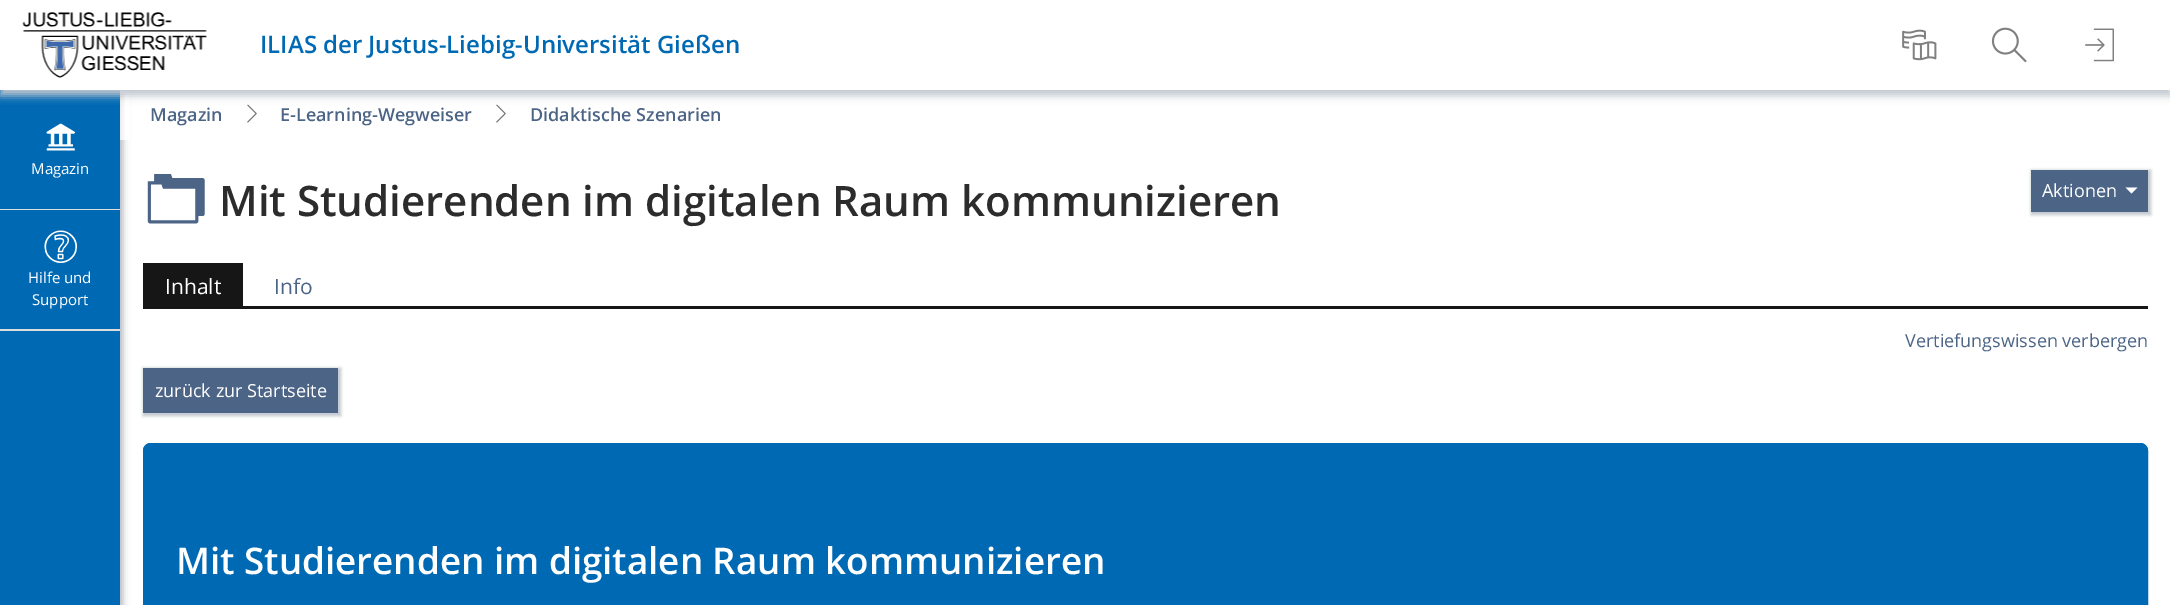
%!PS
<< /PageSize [2170 605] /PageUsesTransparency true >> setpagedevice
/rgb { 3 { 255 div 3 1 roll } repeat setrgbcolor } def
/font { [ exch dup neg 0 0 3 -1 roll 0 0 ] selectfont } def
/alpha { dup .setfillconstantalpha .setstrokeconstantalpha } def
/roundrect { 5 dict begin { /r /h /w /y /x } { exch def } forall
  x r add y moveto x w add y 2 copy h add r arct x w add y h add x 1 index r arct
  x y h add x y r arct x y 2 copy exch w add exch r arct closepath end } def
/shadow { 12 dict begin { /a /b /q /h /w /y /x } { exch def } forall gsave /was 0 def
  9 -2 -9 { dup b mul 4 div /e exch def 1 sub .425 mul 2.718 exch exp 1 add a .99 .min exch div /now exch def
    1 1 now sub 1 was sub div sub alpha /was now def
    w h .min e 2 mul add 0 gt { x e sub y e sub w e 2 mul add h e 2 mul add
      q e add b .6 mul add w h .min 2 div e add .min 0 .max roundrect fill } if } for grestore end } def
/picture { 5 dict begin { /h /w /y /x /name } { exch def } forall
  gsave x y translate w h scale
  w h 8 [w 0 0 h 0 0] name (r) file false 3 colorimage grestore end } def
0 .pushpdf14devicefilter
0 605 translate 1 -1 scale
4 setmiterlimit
255 255 255 rgb
0 0 2170 605 rectfill
193 199 207 rgb
3 90 120 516 0 4 1 shadow
0 105 179 rgb
0 90 120 515 rectfill
255 255 255 rgb
120 90 10 50 rectfill
(img/7.rgb) 247 104 10 19 picture
(img/7.rgb) 496 104 10 19 picture
193 199 207 rgb
0 6 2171 90 0 4 1 shadow
gsave
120 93 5 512 rectclip
0 0 0 rgb
2 95 120 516 0 3 0.1 shadow
grestore
255 255 255 rgb
0 0 2170 90 rectfill
(img/1.rgb) 22 12 185 66 picture
(img/2.rgb) 1902 29 35 32 picture
(img/3.rgb) 1991 27 36 36 picture
(img/4.rgb) 2085 28 29 34 picture
221 221 221 rgb
0 209 120 1 rectfill
(img/5.rgb) 46 123 29 28 picture
0 329 120 2 rectfill
(img/6.rgb) 44 230 34 33 picture
(img/8.rgb) 147 174 58 50 picture
193 199 207 rgb
2031 170 120 45 0 1.5 1 shadow
76 101 134 rgb
2031 170 117 42 rectfill
255 255 255 rgb
2125.5 187.5 moveto 2137.5 187.5 lineto 2131.5 193.5 lineto closepath fill
22 22 22 rgb
143 306 2005 3 rectfill
143 263 100 43 rectfill
193 199 207 rgb
143 368 198 48 0 1.5 1 shadow
76 101 134 rgb
143 368 195 45 rectfill
0 105 179 rgb
151 443 moveto 2140 443 lineto 2144.5 443 2148 446.5 2148 451 curveto 2148 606 lineto 143 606 lineto 143 451 lineto 143 446.5 146.5 443 151 443 curveto closepath fill
3 setlinewidth
144.5 444.5 2002 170 6.5 roundrect stroke
/OpenSans-SemiBold 24 font
260 53 moveto (ILIAS der Justus-Liebig-Universität Gießen) show
/OpenSans-Regular 15 font
255 255 255 rgb
[
  [(Magazin) 31 174]
  [(Hilfe und) 28 283]
  [(Support) 32 305]
] { aload pop moveto show } forall
/OpenSans-SemiBold 18 font
76 101 134 rgb
[
  [(Magazin) 150 121]
  [(E-Learning-Wegweiser) 280 121]
  [(Didaktische Szenarien) 530 121]
] { aload pop moveto show } forall
/OpenSans-SemiBold 42 font
44 44 44 rgb
219 216 moveto (Mit Studierenden im digitalen Raum kommunizieren) show
/OpenSans-Regular 18 font
255 255 255 rgb
2042 197 moveto (Aktionen) show
/OpenSans-Regular 21 font
165 294 moveto (Inhalt) show
76 101 134 rgb
274 294 moveto (Info) show
/OpenSans-Regular 18 font
1905 347 moveto (Vertiefungswissen verbergen) show
255 255 255 rgb
155 397 moveto (zurück zur Startseite) show
/OpenSans-SemiBold 36.75 font
176 574 moveto (Mit Studierenden im digitalen Raum kommunizieren) show
.poppdf14devicefilter showpage
